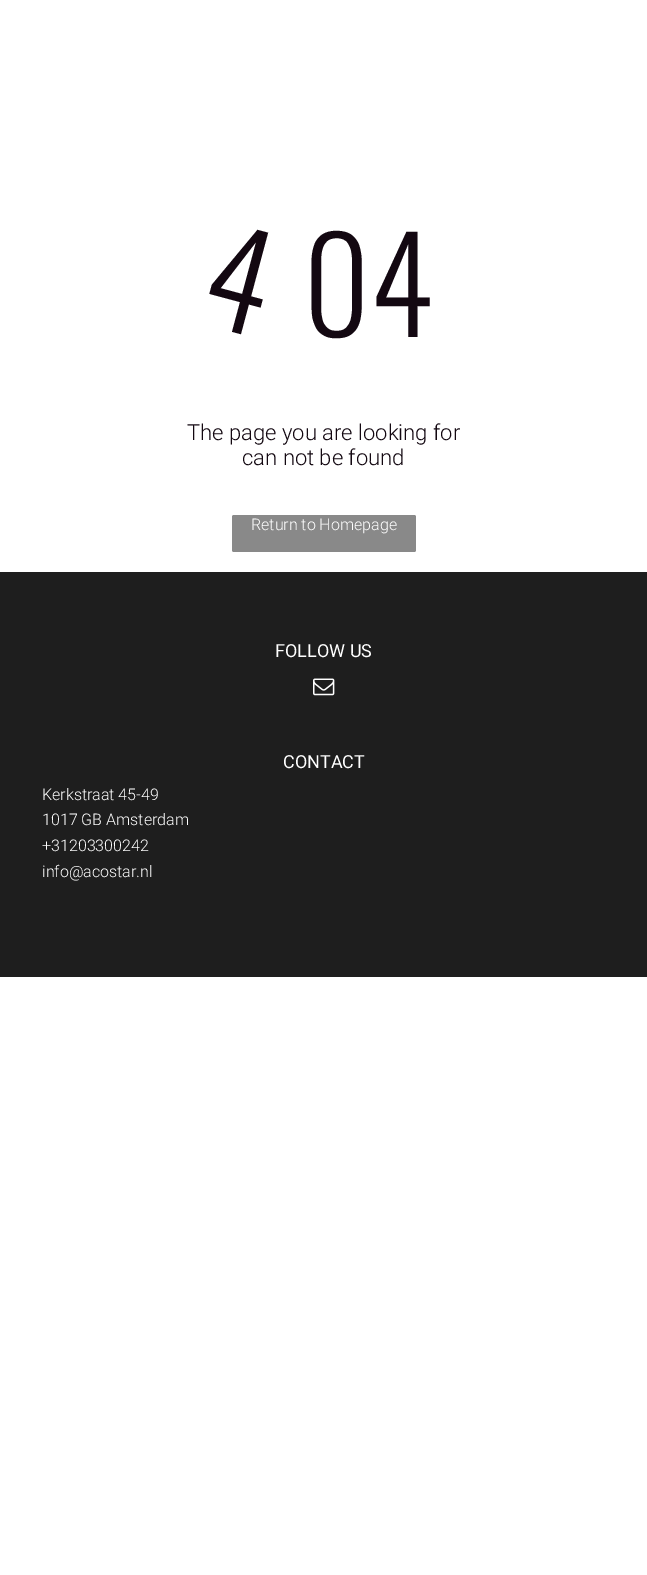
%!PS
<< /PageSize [647 1575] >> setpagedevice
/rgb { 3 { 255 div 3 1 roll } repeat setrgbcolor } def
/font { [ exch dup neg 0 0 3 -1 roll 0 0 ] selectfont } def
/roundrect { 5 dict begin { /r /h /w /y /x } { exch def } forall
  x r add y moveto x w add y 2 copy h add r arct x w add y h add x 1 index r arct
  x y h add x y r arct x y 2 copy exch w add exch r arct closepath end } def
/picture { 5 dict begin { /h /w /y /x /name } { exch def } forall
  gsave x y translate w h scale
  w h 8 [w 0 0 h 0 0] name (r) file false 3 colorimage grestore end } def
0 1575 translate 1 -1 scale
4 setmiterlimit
255 255 255 rgb
0 0 647 1575 rectfill
137 137 137 rgb
232 515 184 37 2 roundrect fill
30 30 30 rgb
0 572 647 405 rectfill
(img/1.rgb) 313 678 22 18 picture
/Oswald-Light 130 font
19 8 17 rgb
gsave 195 322 translate 15 rotate 0 0 moveto (4) show grestore
303 337 moveto (04) show
/Roboto-Light 22 font
187 440 moveto (The page you are looking for) show
242 465 moveto (can not be found) show
/Roboto-Light 16 font
255 255 255 rgb
251 530 moveto (Return to Homepage) show
/Roboto-Regular 18 font
275 657 moveto (FOLLOW US) show
283 768 moveto (CONTACT) show
/Roboto-Light 16 font
[
  [(Kerkstraat 45-49) 42 800]
  [(1017 GB Amsterdam) 42 825]
  [(+31203300242) 42 851]
  [(info@acostar.nl) 42 877]
] { aload pop moveto show } forall
showpage
